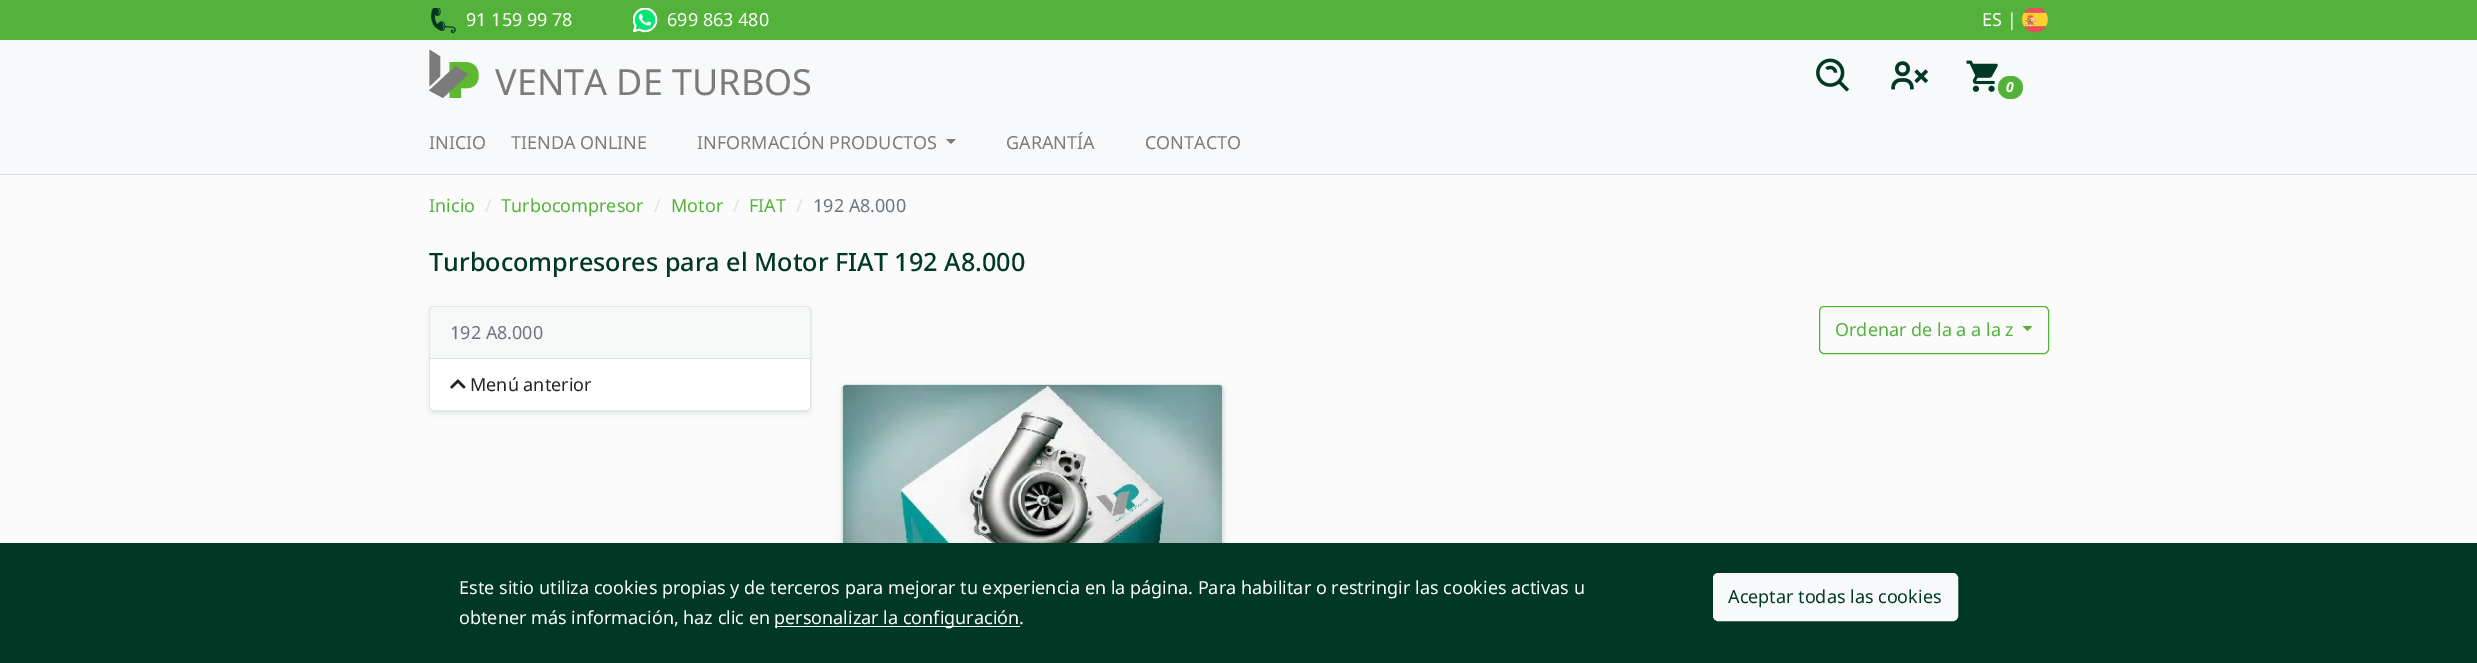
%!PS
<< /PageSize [2477 663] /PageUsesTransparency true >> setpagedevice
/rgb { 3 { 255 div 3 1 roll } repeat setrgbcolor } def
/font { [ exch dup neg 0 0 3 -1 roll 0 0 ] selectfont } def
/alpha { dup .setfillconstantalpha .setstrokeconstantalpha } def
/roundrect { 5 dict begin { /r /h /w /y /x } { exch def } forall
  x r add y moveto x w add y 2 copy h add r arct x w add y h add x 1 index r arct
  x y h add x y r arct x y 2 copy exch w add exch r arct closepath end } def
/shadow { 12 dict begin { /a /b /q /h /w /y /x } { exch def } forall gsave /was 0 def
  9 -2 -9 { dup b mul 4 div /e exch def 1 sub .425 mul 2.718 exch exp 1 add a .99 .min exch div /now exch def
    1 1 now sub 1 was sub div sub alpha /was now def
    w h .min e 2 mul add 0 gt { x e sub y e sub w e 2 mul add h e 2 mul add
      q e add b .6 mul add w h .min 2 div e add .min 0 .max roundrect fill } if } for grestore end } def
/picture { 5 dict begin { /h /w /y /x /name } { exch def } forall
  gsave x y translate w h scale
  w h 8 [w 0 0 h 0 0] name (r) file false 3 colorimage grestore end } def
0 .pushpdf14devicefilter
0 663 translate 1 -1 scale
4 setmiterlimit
251 251 251 rgb
0 0 2477 663 rectfill
83 178 58 rgb
0 0 2477 40 rectfill
(img/1.rgb) 431 8 25 26 picture
(img/2.rgb) 633 8 25 25 picture
(img/3.rgb) 2022 8 26 25 picture
248 249 250 rgb
0 40 2477 134 rectfill
(img/4.rgb) 429 49 50 49 picture
(img/5.rgb) 1816 58 34 34 picture
(img/6.rgb) 1891 61 38 29 picture
(img/7.rgb) 1966 60 32 32 picture
83 178 58 rgb
1998 76 25 23 11.5 roundrect fill
222 226 230 rgb
0 174 2477 1 rectfill
123 123 123 rgb
946 139 moveto 956 139 lineto 951 144 lineto closepath fill
0 56 38 rgb
429 309 382 105 5 2.5 0.07 shadow
255 255 255 rgb
429 306 382 105 5 roundrect fill
0.12 alpha
0 56 38 rgb
429.5 306.5 381 104 4.5 roundrect stroke
1 alpha
247 249 248 rgb
434 308 moveto 806 308 lineto 808 308 810 310 810 312 curveto 810 359 lineto 430 359 lineto 430 312 lineto 430 310 432 308 434 308 curveto closepath fill
216 225 222 rgb
430 358 380 1 rectfill
255 255 255 rgb
430 359 moveto 810 359 lineto 810 406 lineto 810 408 808 410 806 410 curveto 434 410 lineto 432 410 430 408 430 406 curveto closepath fill
(img/8.rgb) 450 379 16 10 picture
83 178 58 rgb
1819.5 306.5 229 47 4.5 roundrect stroke
2022.5 326 moveto 2032.5 326 lineto 2027.5 331 lineto closepath fill
0 56 38 rgb
841 386 383 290 5 2.5 0.07 shadow
255 255 255 rgb
841 384 383 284 5 roundrect fill
0.12 alpha
0 56 38 rgb
841.5 384.5 382 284 4.5 roundrect stroke
1 alpha
(img/9.rgb) 842 385 381 158 picture
0 543 2477 120 rectfill
255 255 255 rgb
775 626 245 1 rectfill
248 249 250 rgb
1713.5 573.5 244 47 4.5 roundrect gsave fill grestore
stroke
/NotoSans-Regular 18 font
255 255 255 rgb
[
  [(91 159 99 78) 466 26]
  [(699 863 480) 667 26]
  [(ES |) 1982 26]
] { aload pop moveto show } forall
/NotoSans-Regular 36 font
123 123 123 rgb
495 95 moveto (VENTA DE TURBOS) show
/NotoSans-BoldItalic 14 font
255 255 255 rgb
2006 92 moveto (0) show
/NotoSans-Regular 18 font
123 123 123 rgb
[
  [(INICIO) 429 149]
  [(TIENDA ONLINE) 511 149]
  [(INFORMACIÓN PRODUCTOS) 697 149]
  [(GARANTÍA) 1006 149]
  [(CONTACTO) 1145 149]
] { aload pop moveto show } forall
83 178 58 rgb
429 212 moveto (Inicio) show
222 226 230 rgb
485 212 moveto (/) show
83 178 58 rgb
501 212 moveto (Turbocompresor) show
222 226 230 rgb
654 212 moveto (/) show
83 178 58 rgb
671 212 moveto (Motor) show
222 226 230 rgb
733 212 moveto (/) show
83 178 58 rgb
749 212 moveto (FIAT) show
222 226 230 rgb
796 212 moveto (/) show
108 117 125 rgb
813 212 moveto (192 A8.000) show
/NotoSans-Medium 25.2 font
0 56 38 rgb
429 271 moveto (Turbocompresores para el Motor FIAT 192 A8.000) show
/NotoSans-Regular 18 font
108 117 125 rgb
450 339 moveto (192 A8.000) show
33 37 41 rgb
470 391 moveto (Menú anterior) show
83 178 58 rgb
1835 336 moveto (Ordenar de la a a la z) show
255 255 255 rgb
[
  [(Este sitio utiliza cookies propias y de terceros para mejorar tu experiencia en la página. Para habilitar o restringir las cookies activas u) 459 594]
  [(obtener más información, haz clic en) 459 624]
  [(personalizar la configuración.) 774 624]
] { aload pop moveto show } forall
0 56 38 rgb
1728 603 moveto (Aceptar todas las cookies) show
.poppdf14devicefilter showpage
